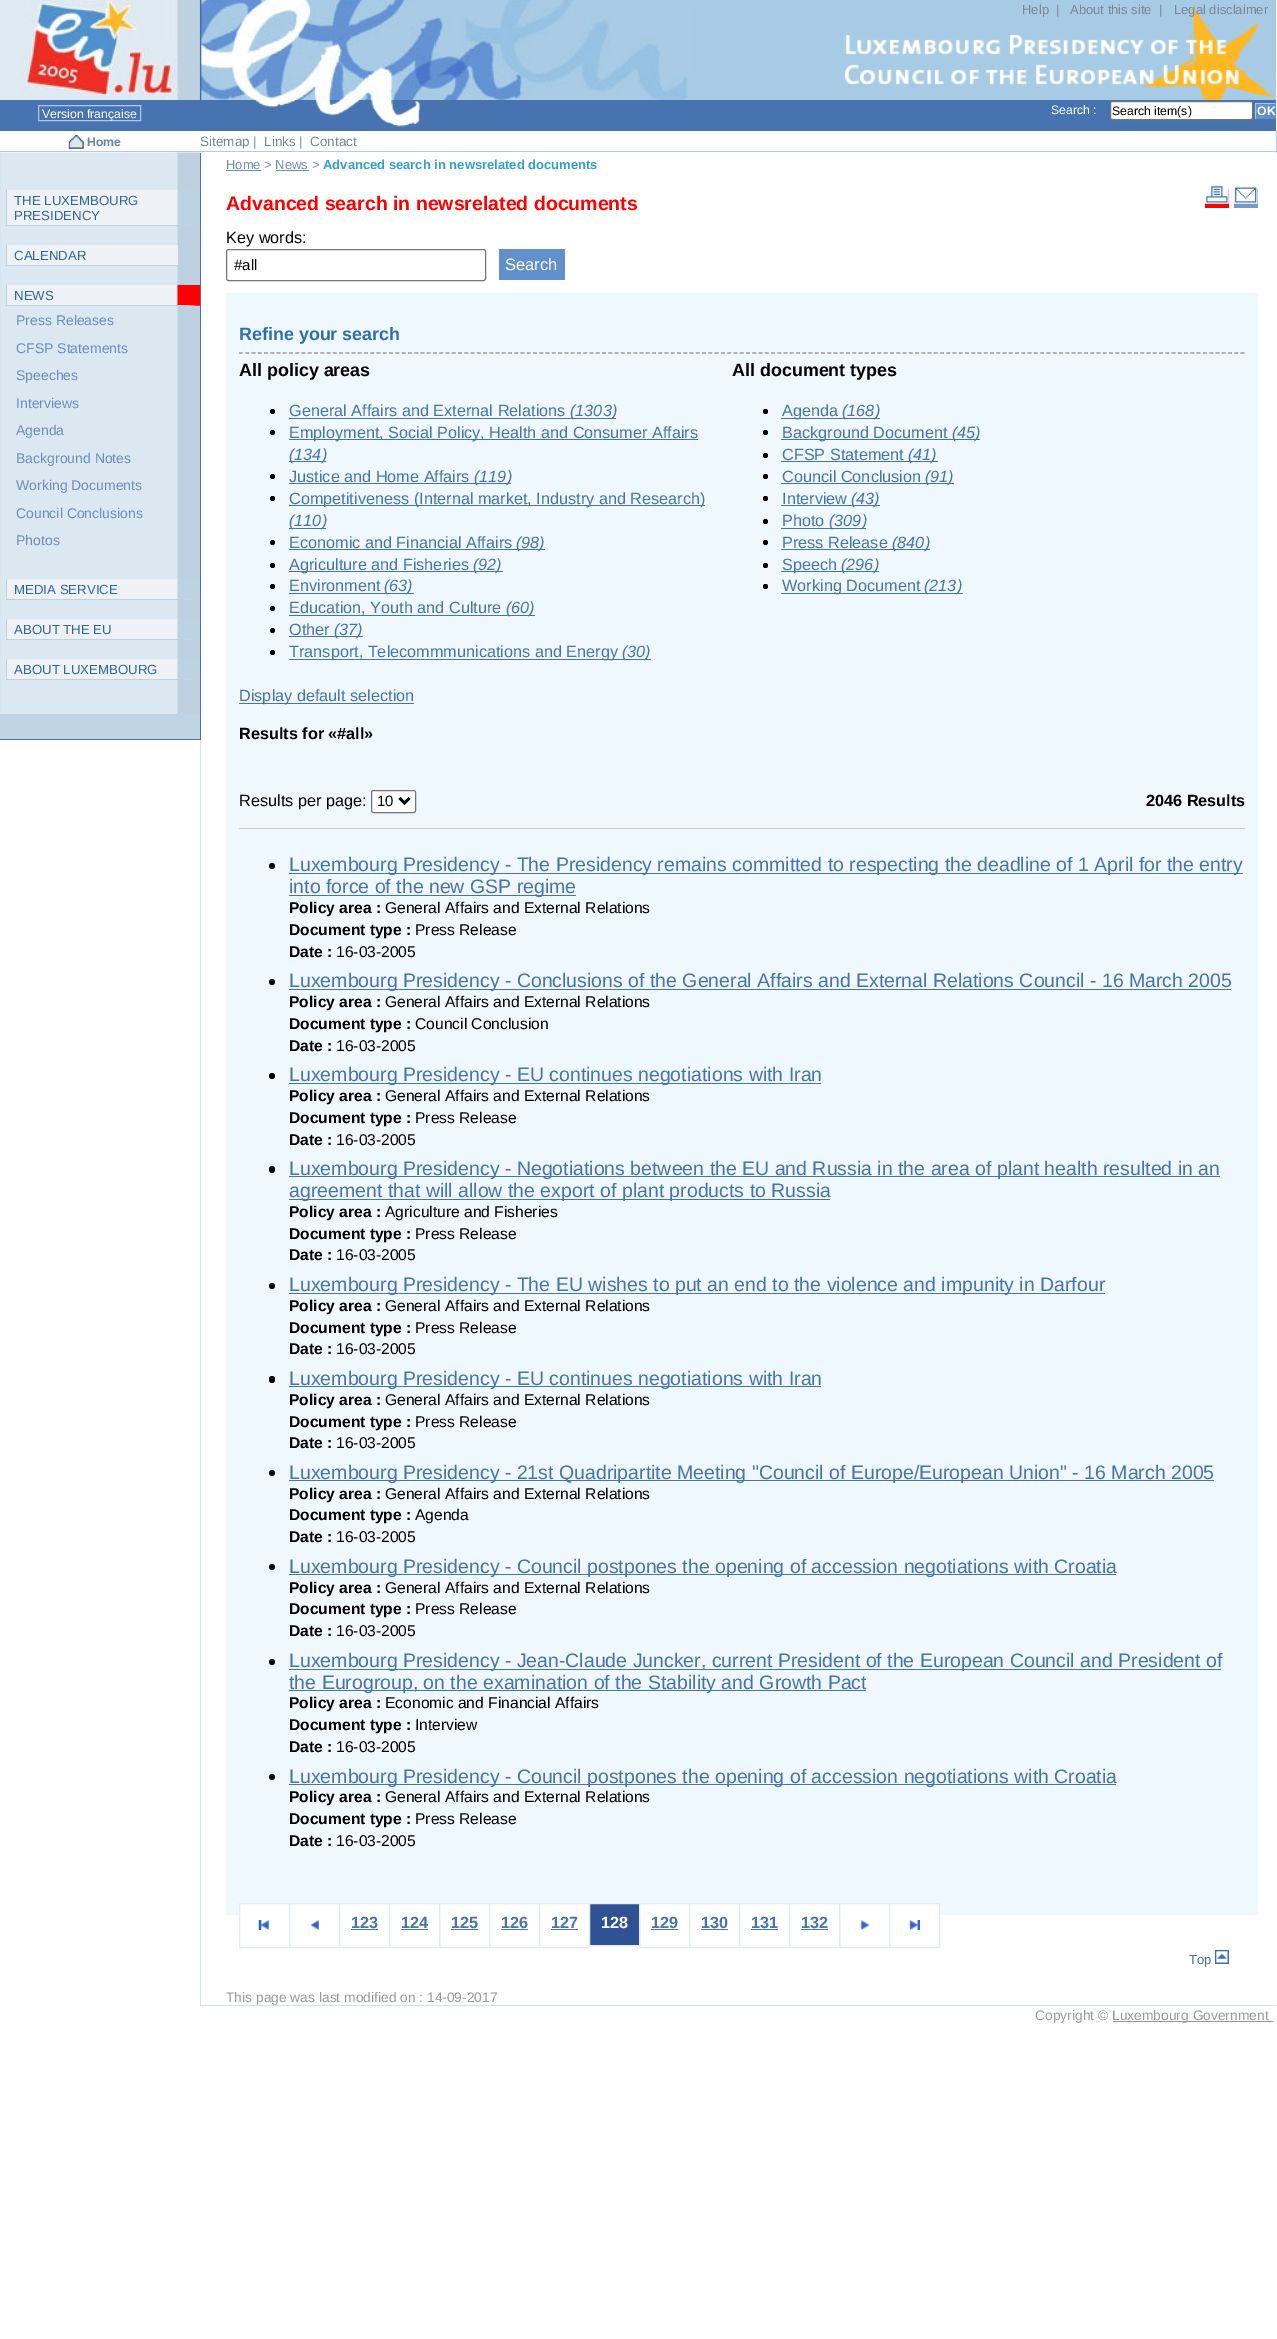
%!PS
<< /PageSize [1277 2339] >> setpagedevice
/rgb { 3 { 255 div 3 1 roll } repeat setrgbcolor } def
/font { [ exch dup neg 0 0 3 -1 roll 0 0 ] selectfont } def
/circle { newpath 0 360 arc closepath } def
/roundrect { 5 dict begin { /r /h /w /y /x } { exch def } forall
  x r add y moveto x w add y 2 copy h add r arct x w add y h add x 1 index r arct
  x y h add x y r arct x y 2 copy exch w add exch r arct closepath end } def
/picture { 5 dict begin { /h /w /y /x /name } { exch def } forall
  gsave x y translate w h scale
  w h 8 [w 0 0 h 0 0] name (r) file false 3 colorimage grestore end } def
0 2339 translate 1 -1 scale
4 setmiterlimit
255 255 255 rgb
0 0 1277 2339 rectfill
168 203 229 rgb
690 0 586 100 rectfill
(img/1.rgb) 180 0 510 100 picture
(img/2.rgb) 0 0 180 100 picture
(img/3.rgb) 844 6 430 94 picture
71 116 176 rgb
0 100 1276 31 rectfill
(img/4.rgb) 255 100 166 27 picture
174 199 232 rgb
38.5 105.5 102 15 rectstroke
255 255 255 rgb
1110.5 101.5 142 18 2 roundrect gsave fill grestore
118 118 118 rgb
stroke
[
  [1256 104 19 15 97 144 205]
  [1255 103 21 1 171 199 236]
  [1275 103 1 16 97 144 205]
  [1255 103 1 16 171 199 236]
  [1276 131 1 22 183 200 224]
  [0 151 1277 1 183 200 224]
] { aload pop rgb rectfill } forall
(img/5.rgb) 68 135 16 14 picture
(img/6.rgb) 0 152 202 588 picture
[
  [200 153 1 587 74 114 166]
  [0 739 201 1 74 114 166]
  [0 714 199 25 190 211 227]
  [7 190 193 36 238 242 247]
] { aload pop rgb rectfill } forall
189 210 227 rgb
200 190 moveto 200 226 lineto 177.5 225 lineto 177.5 190 lineto closepath fill
190 209 224 rgb
200 226 moveto 6 226 lineto 8 225 lineto 178 225 lineto closepath fill
[
  [6 190 1 36 190 209 224]
  [7 245 171 20 238 242 247]
  [6 265 172 1 190 209 224]
  [6 245 1 21 190 209 224]
  [7 285 193 21 238 242 247]
] { aload pop rgb rectfill } forall
255 0 0 rgb
200 285 moveto 200 306 lineto 177.5 305 lineto 177.5 285 lineto closepath fill
190 209 224 rgb
200 306 moveto 6 306 lineto 8 305 lineto 178 305 lineto closepath fill
6 285 1 21 rectfill
238 242 247 rgb
7 579 193 21 rectfill
189 210 227 rgb
200 579 moveto 200 600 lineto 177.5 599 lineto 177.5 579 lineto closepath fill
190 209 224 rgb
200 600 moveto 6 600 lineto 8 599 lineto 178 599 lineto closepath fill
6 579 1 21 rectfill
238 242 247 rgb
7 619 193 21 rectfill
189 210 227 rgb
200 619 moveto 200 640 lineto 177.5 639 lineto 177.5 619 lineto closepath fill
190 209 224 rgb
200 640 moveto 6 640 lineto 8 639 lineto 178 639 lineto closepath fill
6 619 1 21 rectfill
238 242 247 rgb
7 659 193 21 rectfill
189 210 227 rgb
200 659 moveto 200 680 lineto 177.5 679 lineto 177.5 659 lineto closepath fill
190 209 224 rgb
200 680 moveto 6 680 lineto 8 679 lineto 178 679 lineto closepath fill
[
  [6 659 1 21 190 209 224]
  [200 2005 1076 1 214 225 239]
  [200 740 1 1266 214 225 239]
  [226 170 35 1 108 142 189]
  [276 170 33 1 108 142 189]
  [1205 189 24 19 255 0 0]
] { aload pop rgb rectfill } forall
(img/7.rgb) 1205 186 24 18 picture
116 154 203 rgb
1234 189 24 19 rectfill
(img/8.rgb) 1234 187 24 17 picture
118 118 118 rgb
226.5 249.5 259 31 2 roundrect stroke
97 144 205 rgb
499 249 66 31 rectfill
239 248 254 rgb
226 293 1032 1622 rectfill
153 153 153 rgb
1.2 setlinewidth
[3.75 2.51] 0 setdash
239 353 moveto 1245 353 lineto stroke
0 0 0 rgb
272.5 411.5 2.5 circle fill
71 116 176 rgb
289 418 327 1 rectfill
0 0 0 rgb
272.5 432.5 2.5 circle fill
71 116 176 rgb
289 439 409 1 rectfill
289 461 37 1 rectfill
0 0 0 rgb
272.5 476.5 2.5 circle fill
71 116 176 rgb
289 483 222 1 rectfill
0 0 0 rgb
272.5 498.5 2.5 circle fill
71 116 176 rgb
289 505 416 1 rectfill
289 528 37 1 rectfill
0 0 0 rgb
272.5 542.5 2.5 circle fill
71 116 176 rgb
289 549 256 1 rectfill
0 0 0 rgb
272.5 565.5 2.5 circle fill
71 116 176 rgb
289 571 214 1 rectfill
0 0 0 rgb
272.5 586.5 2.5 circle fill
71 116 176 rgb
289 593 125 1 rectfill
0 0 0 rgb
272.5 608.5 2.5 circle fill
71 116 176 rgb
289 615 246 1 rectfill
0 0 0 rgb
272.5 630.5 2.5 circle fill
71 116 176 rgb
289 636 74 1 rectfill
0 0 0 rgb
272.5 652.5 2.5 circle fill
71 116 176 rgb
289 659 362 1 rectfill
0 0 0 rgb
765.5 411.5 2.5 circle fill
71 116 176 rgb
781 418 99 1 rectfill
0 0 0 rgb
765.5 432.5 2.5 circle fill
71 116 176 rgb
781 439 199 1 rectfill
0 0 0 rgb
765.5 455.5 2.5 circle fill
71 116 176 rgb
781 461 157 1 rectfill
0 0 0 rgb
765.5 476.5 2.5 circle fill
71 116 176 rgb
781 483 173 1 rectfill
0 0 0 rgb
765.5 498.5 2.5 circle fill
71 116 176 rgb
781 505 99 1 rectfill
0 0 0 rgb
765.5 521.5 2.5 circle fill
71 116 176 rgb
781 528 85 1 rectfill
0 0 0 rgb
765.5 542.5 2.5 circle fill
71 116 176 rgb
781 549 149 1 rectfill
0 0 0 rgb
765.5 565.5 2.5 circle fill
71 116 176 rgb
781 571 98 1 rectfill
0 0 0 rgb
765.5 586.5 2.5 circle fill
71 116 176 rgb
781 593 182 1 rectfill
239 703 175 1 rectfill
255 255 255 rgb
371.5 790.5 44 22 2 roundrect gsave fill grestore
118 118 118 rgb
1 setlinewidth
[] 0 setdash
stroke
0 0 0 rgb
2.5 setlinewidth
399.5 798 moveto 404.5 803 lineto 409.5 798 lineto stroke
204 204 204 rgb
239 828 1006 1 rectfill
0 0 0 rgb
272 866 3 circle fill
71 116 176 rgb
289 873 954 1 rectfill
289 895 287 1 rectfill
0 0 0 rgb
272 982 3 circle fill
71 116 176 rgb
289 989 942 1 rectfill
0 0 0 rgb
272 1076 3 circle fill
71 116 176 rgb
289 1083 532 1 rectfill
0 0 0 rgb
269 1166 6 7 3 roundrect fill
71 116 176 rgb
289 1176 931 1 rectfill
289 1199 541 1 rectfill
0 0 0 rgb
272 1286 3 circle fill
71 116 176 rgb
289 1293 816 1 rectfill
0 0 0 rgb
269 1376 6 7 3 roundrect fill
71 116 176 rgb
289 1386 532 1 rectfill
0 0 0 rgb
272 1473 3 circle fill
71 116 176 rgb
289 1480 925 1 rectfill
0 0 0 rgb
272 1567 3 circle fill
71 116 176 rgb
289 1574 827 1 rectfill
0 0 0 rgb
272 1662 3 circle fill
71 116 176 rgb
289 1669 932 1 rectfill
289 1690 577 1 rectfill
0 0 0 rgb
272 1777 3 circle fill
71 116 176 rgb
289 1784 827 1 rectfill
255 255 255 rgb
240 1904 49 11 rectfill
228 236 248 rgb
1 setlinewidth
239.5 1903.5 50 44 rectstroke
(img/9.rgb) 258 1920 12 10 picture
255 255 255 rgb
290 1904 49 11 rectfill
228 236 248 rgb
289.5 1903.5 50 44 rectstroke
(img/10.rgb) 310 1920 9 10 picture
255 255 255 rgb
340 1904 49 11 rectfill
228 236 248 rgb
339.5 1903.5 50 44 rectstroke
71 116 176 rgb
351 1929 27 1 rectfill
255 255 255 rgb
390 1904 49 11 rectfill
228 236 248 rgb
389.5 1903.5 50 44 rectstroke
71 116 176 rgb
401 1929 27 1 rectfill
255 255 255 rgb
440 1904 49 11 rectfill
228 236 248 rgb
439.5 1903.5 50 44 rectstroke
71 116 176 rgb
451 1929 27 1 rectfill
255 255 255 rgb
490 1904 49 11 rectfill
228 236 248 rgb
489.5 1903.5 50 44 rectstroke
71 116 176 rgb
501 1929 27 1 rectfill
255 255 255 rgb
540 1904 49 11 rectfill
228 236 248 rgb
539.5 1903.5 50 44 rectstroke
71 116 176 rgb
551 1929 27 1 rectfill
47 82 149 rgb
589.5 1903.5 moveto 639.5 1903.5 lineto 639.5 1945.5 lineto 589.5 1945.5 lineto closepath gsave fill grestore
228 236 248 rgb
stroke
255 255 255 rgb
640 1904 49 11 rectfill
228 236 248 rgb
639.5 1903.5 50 44 rectstroke
71 116 176 rgb
651 1929 27 1 rectfill
255 255 255 rgb
690 1904 49 11 rectfill
228 236 248 rgb
689.5 1903.5 50 44 rectstroke
71 116 176 rgb
701 1929 27 1 rectfill
255 255 255 rgb
740 1904 49 11 rectfill
228 236 248 rgb
739.5 1903.5 50 44 rectstroke
71 116 176 rgb
751 1929 27 1 rectfill
255 255 255 rgb
790 1904 49 11 rectfill
228 236 248 rgb
789.5 1903.5 50 44 rectstroke
71 116 176 rgb
801 1929 27 1 rectfill
255 255 255 rgb
840 1904 49 11 rectfill
228 236 248 rgb
839.5 1903.5 50 44 rectstroke
(img/11.rgb) 860 1920 10 10 picture
255 255 255 rgb
890 1904 49 11 rectfill
228 236 248 rgb
889.5 1903.5 50 44 rectstroke
(img/12.rgb) 909 1920 11 10 picture
55 111 187 rgb
1215 1950 14 14 rectfill
(img/13.rgb) 1216 1951 12 12 picture
153 153 153 rgb
1113 2021 160 1 rectfill
/LiberationSans-Regular 13 font
120 135 154 rgb
[
  [(Help) 1022 14]
  [(|) 1056 14]
  [(About this site) 1070 14]
  [(|) 1159 14]
  [(Legal disclaimer) 1174 14]
] { aload pop moveto show } forall
/LiberationSans-Regular 12.25 font
255 255 255 rgb
42 118 moveto (Version française) show
1051 114 moveto (Search :) show
0 0 0 rgb
1112 115 moveto (Search item\(s\)) show
/LiberationSans-Bold 12.25 font
255 255 255 rgb
1257 115 moveto (OK) show
110 130 176 rgb
87 146 moveto (Home) show
/LiberationSans-Regular 13.5 font
120 135 154 rgb
[
  [(Sitemap |) 200 146]
  [(Links |) 264 146]
  [(Contact) 310 146]
] { aload pop moveto show } forall
/LiberationSans-Regular 13.25 font
51 102 153 rgb
[
  [(THE LUXEMBOURG) 14 205]
  [(PRESIDENCY) 14 220]
  [(CALENDAR) 14 260]
  [(NEWS) 14 300]
] { aload pop moveto show } forall
/LiberationSans-Regular 14 font
108 142 189 rgb
[
  [(Press Releases) 16 325]
  [(CFSP Statements) 16 353]
  [(Speeches) 16 380]
  [(Interviews) 16 408]
  [(Agenda) 16 435]
  [(Background Notes) 16 463]
  [(Working Documents) 16 490]
  [(Council Conclusions) 16 518]
  [(Photos) 16 545]
] { aload pop moveto show } forall
/LiberationSans-Regular 13.25 font
51 102 153 rgb
[
  [(MEDIA SERVICE) 14 594]
  [(ABOUT THE EU) 14 634]
  [(ABOUT LUXEMBOURG) 14 674]
] { aload pop moveto show } forall
/LiberationSans-Regular 13 font
108 142 189 rgb
226 169 moveto (Home > News >) show
/LiberationSans-Bold 13 font
49 161 211 rgb
323 169 moveto (Advanced search in newsrelated documents) show
/LiberationSans-Bold 19.5 font
255 0 0 rgb
226 210 moveto (Advanced search in newsrelated documents) show
/LiberationSans-Regular 16.25 font
0 0 0 rgb
226 243 moveto (Key words:) show
/LiberationSans-Regular 15 font
234 270 moveto (#all) show
/LiberationSans-Regular 16.5 font
255 255 255 rgb
505 270 moveto (Search) show
/LiberationSans-Bold 17.9 font
47 110 172 rgb
239 340 moveto (Refine your search) show
0 0 0 rgb
239 376 moveto (All policy areas) show
/LiberationSans-Regular 16.25 font
71 116 176 rgb
289 416 moveto (General Affairs and External Relations) show
/LiberationSans-Italic 16.25 font
570 416 moveto (\(1303\)) show
/LiberationSans-Regular 16.25 font
289 438 moveto (Employment, Social Policy, Health and Consumer Affairs) show
/LiberationSans-Italic 16.25 font
289 460 moveto (\(134\)) show
/LiberationSans-Regular 16.25 font
289 482 moveto (Justice and Home Affairs) show
/LiberationSans-Italic 16.25 font
474 482 moveto (\(119\)) show
/LiberationSans-Regular 16.25 font
289 504 moveto (Competitiveness \(Internal market, Industry and Research\)) show
/LiberationSans-Italic 16.25 font
289 526 moveto (\(110\)) show
/LiberationSans-Regular 16.25 font
289 548 moveto (Economic and Financial Affairs) show
/LiberationSans-Italic 16.25 font
516 548 moveto (\(98\)) show
/LiberationSans-Regular 16.25 font
289 570 moveto (Agriculture and Fisheries) show
/LiberationSans-Italic 16.25 font
473 570 moveto (\(92\)) show
/LiberationSans-Regular 16.25 font
289 591 moveto (Environment) show
/LiberationSans-Italic 16.25 font
384 591 moveto (\(63\)) show
/LiberationSans-Regular 16.25 font
289 613 moveto (Education, Youth and Culture) show
/LiberationSans-Italic 16.25 font
506 613 moveto (\(60\)) show
/LiberationSans-Regular 16.25 font
289 635 moveto (Other) show
/LiberationSans-Italic 16.25 font
334 635 moveto (\(37\)) show
/LiberationSans-Regular 16.25 font
289 657 moveto (Transport, Telecommmunications and Energy) show
/LiberationSans-Italic 16.25 font
622 657 moveto (\(30\)) show
/LiberationSans-Bold 17.9 font
0 0 0 rgb
732 376 moveto (All document types) show
/LiberationSans-Regular 16.25 font
71 116 176 rgb
782 416 moveto (Agenda) show
/LiberationSans-Italic 16.25 font
842 416 moveto (\(168\)) show
/LiberationSans-Regular 16.25 font
782 438 moveto (Background Document) show
/LiberationSans-Italic 16.25 font
952 438 moveto (\(45\)) show
/LiberationSans-Regular 16.25 font
782 460 moveto (CFSP Statement) show
/LiberationSans-Italic 16.25 font
908 460 moveto (\(41\)) show
/LiberationSans-Regular 16.25 font
782 482 moveto (Council Conclusion) show
/LiberationSans-Italic 16.25 font
925 482 moveto (\(91\)) show
/LiberationSans-Regular 16.25 font
782 504 moveto (Interview) show
/LiberationSans-Italic 16.25 font
851 504 moveto (\(43\)) show
/LiberationSans-Regular 16.25 font
782 526 moveto (Photo) show
/LiberationSans-Italic 16.25 font
829 526 moveto (\(309\)) show
/LiberationSans-Regular 16.25 font
782 548 moveto (Press Release) show
/LiberationSans-Italic 16.25 font
892 548 moveto (\(840\)) show
/LiberationSans-Regular 16.25 font
782 570 moveto (Speech) show
/LiberationSans-Italic 16.25 font
841 570 moveto (\(296\)) show
/LiberationSans-Regular 16.25 font
782 591 moveto (Working Document) show
/LiberationSans-Italic 16.25 font
924 591 moveto (\(213\)) show
/LiberationSans-Regular 16.25 font
239 701 moveto (Display default selection) show
/LiberationSans-Bold 16.25 font
0 0 0 rgb
239 739 moveto (Results for «#all») show
/LiberationSans-Regular 16.25 font
239 806 moveto (Results per page:) show
/LiberationSans-Regular 15 font
377 806 moveto (10) show
/LiberationSans-Bold 16.25 font
1146 806 moveto (2046 Results) show
/LiberationSans-Regular 19.5 font
71 116 176 rgb
289 871 moveto (Luxembourg Presidency - The Presidency remains committed to respecting the deadline of 1 April for the entry) show
289 893 moveto (into force of the new GSP regime) show
/LiberationSans-Bold 15.6 font
0 0 0 rgb
289 913 moveto (Policy area :) show
/LiberationSans-Regular 15.6 font
385 913 moveto (General Affairs and External Relations) show
/LiberationSans-Bold 15.6 font
289 935 moveto (Document type :) show
/LiberationSans-Regular 15.6 font
415 935 moveto (Press Release) show
/LiberationSans-Bold 15.6 font
289 957 moveto (Date :) show
/LiberationSans-Regular 15.6 font
336 957 moveto (16-03-2005) show
/LiberationSans-Regular 19.5 font
71 116 176 rgb
289 987 moveto (Luxembourg Presidency - Conclusions of the General Affairs and External Relations Council - 16 March 2005) show
/LiberationSans-Bold 15.6 font
0 0 0 rgb
289 1007 moveto (Policy area :) show
/LiberationSans-Regular 15.6 font
385 1007 moveto (General Affairs and External Relations) show
/LiberationSans-Bold 15.6 font
289 1029 moveto (Document type :) show
/LiberationSans-Regular 15.6 font
415 1029 moveto (Council Conclusion) show
/LiberationSans-Bold 15.6 font
289 1051 moveto (Date :) show
/LiberationSans-Regular 15.6 font
336 1051 moveto (16-03-2005) show
/LiberationSans-Regular 19.5 font
71 116 176 rgb
289 1081 moveto (Luxembourg Presidency - EU continues negotiations with Iran) show
/LiberationSans-Bold 15.6 font
0 0 0 rgb
289 1101 moveto (Policy area :) show
/LiberationSans-Regular 15.6 font
385 1101 moveto (General Affairs and External Relations) show
/LiberationSans-Bold 15.6 font
289 1123 moveto (Document type :) show
/LiberationSans-Regular 15.6 font
415 1123 moveto (Press Release) show
/LiberationSans-Bold 15.6 font
289 1145 moveto (Date :) show
/LiberationSans-Regular 15.6 font
336 1145 moveto (16-03-2005) show
/LiberationSans-Regular 19.5 font
71 116 176 rgb
289 1175 moveto (Luxembourg Presidency - Negotiations between the EU and Russia in the area of plant health resulted in an) show
289 1197 moveto (agreement that will allow the export of plant products to Russia) show
/LiberationSans-Bold 15.6 font
0 0 0 rgb
289 1217 moveto (Policy area :) show
/LiberationSans-Regular 15.6 font
385 1217 moveto (Agriculture and Fisheries) show
/LiberationSans-Bold 15.6 font
289 1239 moveto (Document type :) show
/LiberationSans-Regular 15.6 font
415 1239 moveto (Press Release) show
/LiberationSans-Bold 15.6 font
289 1260 moveto (Date :) show
/LiberationSans-Regular 15.6 font
336 1260 moveto (16-03-2005) show
/LiberationSans-Regular 19.5 font
71 116 176 rgb
289 1291 moveto (Luxembourg Presidency - The EU wishes to put an end to the violence and impunity in Darfour) show
/LiberationSans-Bold 15.6 font
0 0 0 rgb
289 1311 moveto (Policy area :) show
/LiberationSans-Regular 15.6 font
385 1311 moveto (General Affairs and External Relations) show
/LiberationSans-Bold 15.6 font
289 1333 moveto (Document type :) show
/LiberationSans-Regular 15.6 font
415 1333 moveto (Press Release) show
/LiberationSans-Bold 15.6 font
289 1354 moveto (Date :) show
/LiberationSans-Regular 15.6 font
336 1354 moveto (16-03-2005) show
/LiberationSans-Regular 19.5 font
71 116 176 rgb
289 1385 moveto (Luxembourg Presidency - EU continues negotiations with Iran) show
/LiberationSans-Bold 15.6 font
0 0 0 rgb
289 1405 moveto (Policy area :) show
/LiberationSans-Regular 15.6 font
385 1405 moveto (General Affairs and External Relations) show
/LiberationSans-Bold 15.6 font
289 1427 moveto (Document type :) show
/LiberationSans-Regular 15.6 font
415 1427 moveto (Press Release) show
/LiberationSans-Bold 15.6 font
289 1448 moveto (Date :) show
/LiberationSans-Regular 15.6 font
336 1448 moveto (16-03-2005) show
/LiberationSans-Regular 19.5 font
71 116 176 rgb
289 1479 moveto (Luxembourg Presidency - 21st Quadripartite Meeting "Council of Europe/European Union" - 16 March 2005) show
/LiberationSans-Bold 15.6 font
0 0 0 rgb
289 1499 moveto (Policy area :) show
/LiberationSans-Regular 15.6 font
385 1499 moveto (General Affairs and External Relations) show
/LiberationSans-Bold 15.6 font
289 1520 moveto (Document type :) show
/LiberationSans-Regular 15.6 font
415 1520 moveto (Agenda) show
/LiberationSans-Bold 15.6 font
289 1542 moveto (Date :) show
/LiberationSans-Regular 15.6 font
336 1542 moveto (16-03-2005) show
/LiberationSans-Regular 19.5 font
71 116 176 rgb
289 1573 moveto (Luxembourg Presidency - Council postpones the opening of accession negotiations with Croatia) show
/LiberationSans-Bold 15.6 font
0 0 0 rgb
289 1593 moveto (Policy area :) show
/LiberationSans-Regular 15.6 font
385 1593 moveto (General Affairs and External Relations) show
/LiberationSans-Bold 15.6 font
289 1614 moveto (Document type :) show
/LiberationSans-Regular 15.6 font
415 1614 moveto (Press Release) show
/LiberationSans-Bold 15.6 font
289 1636 moveto (Date :) show
/LiberationSans-Regular 15.6 font
336 1636 moveto (16-03-2005) show
/LiberationSans-Regular 19.5 font
71 116 176 rgb
289 1667 moveto (Luxembourg Presidency - Jean-Claude Juncker, current President of the European Council and President of) show
289 1689 moveto (the Eurogroup, on the examination of the Stability and Growth Pact) show
/LiberationSans-Bold 15.6 font
0 0 0 rgb
289 1708 moveto (Policy area :) show
/LiberationSans-Regular 15.6 font
385 1708 moveto (Economic and Financial Affairs) show
/LiberationSans-Bold 15.6 font
289 1730 moveto (Document type :) show
/LiberationSans-Regular 15.6 font
415 1730 moveto (Interview) show
/LiberationSans-Bold 15.6 font
289 1752 moveto (Date :) show
/LiberationSans-Regular 15.6 font
336 1752 moveto (16-03-2005) show
/LiberationSans-Regular 19.5 font
71 116 176 rgb
289 1783 moveto (Luxembourg Presidency - Council postpones the opening of accession negotiations with Croatia) show
/LiberationSans-Bold 15.6 font
0 0 0 rgb
289 1802 moveto (Policy area :) show
/LiberationSans-Regular 15.6 font
385 1802 moveto (General Affairs and External Relations) show
/LiberationSans-Bold 15.6 font
289 1824 moveto (Document type :) show
/LiberationSans-Regular 15.6 font
415 1824 moveto (Press Release) show
/LiberationSans-Bold 15.6 font
289 1846 moveto (Date :) show
/LiberationSans-Regular 15.6 font
336 1846 moveto (16-03-2005) show
/LiberationSans-Bold 16.25 font
71 116 176 rgb
[
  [(123) 351 1928]
  [(124) 401 1928]
  [(125) 451 1928]
  [(126) 501 1928]
  [(127) 551 1928]
] { aload pop moveto show } forall
255 255 255 rgb
601 1928 moveto (128) show
71 116 176 rgb
[
  [(129) 651 1928]
  [(130) 701 1928]
  [(131) 751 1928]
  [(132) 801 1928]
] { aload pop moveto show } forall
/LiberationSans-Regular 13 font
55 111 187 rgb
1189 1964 moveto (Top) show
/LiberationSans-Regular 13.8 font
153 153 153 rgb
[
  [(This page was last modified on : 14-09-2017) 226 2002]
  [(Copyright ©) 1035 2020]
  [(Luxembourg Government) 1112 2020]
] { aload pop moveto show } forall
showpage
